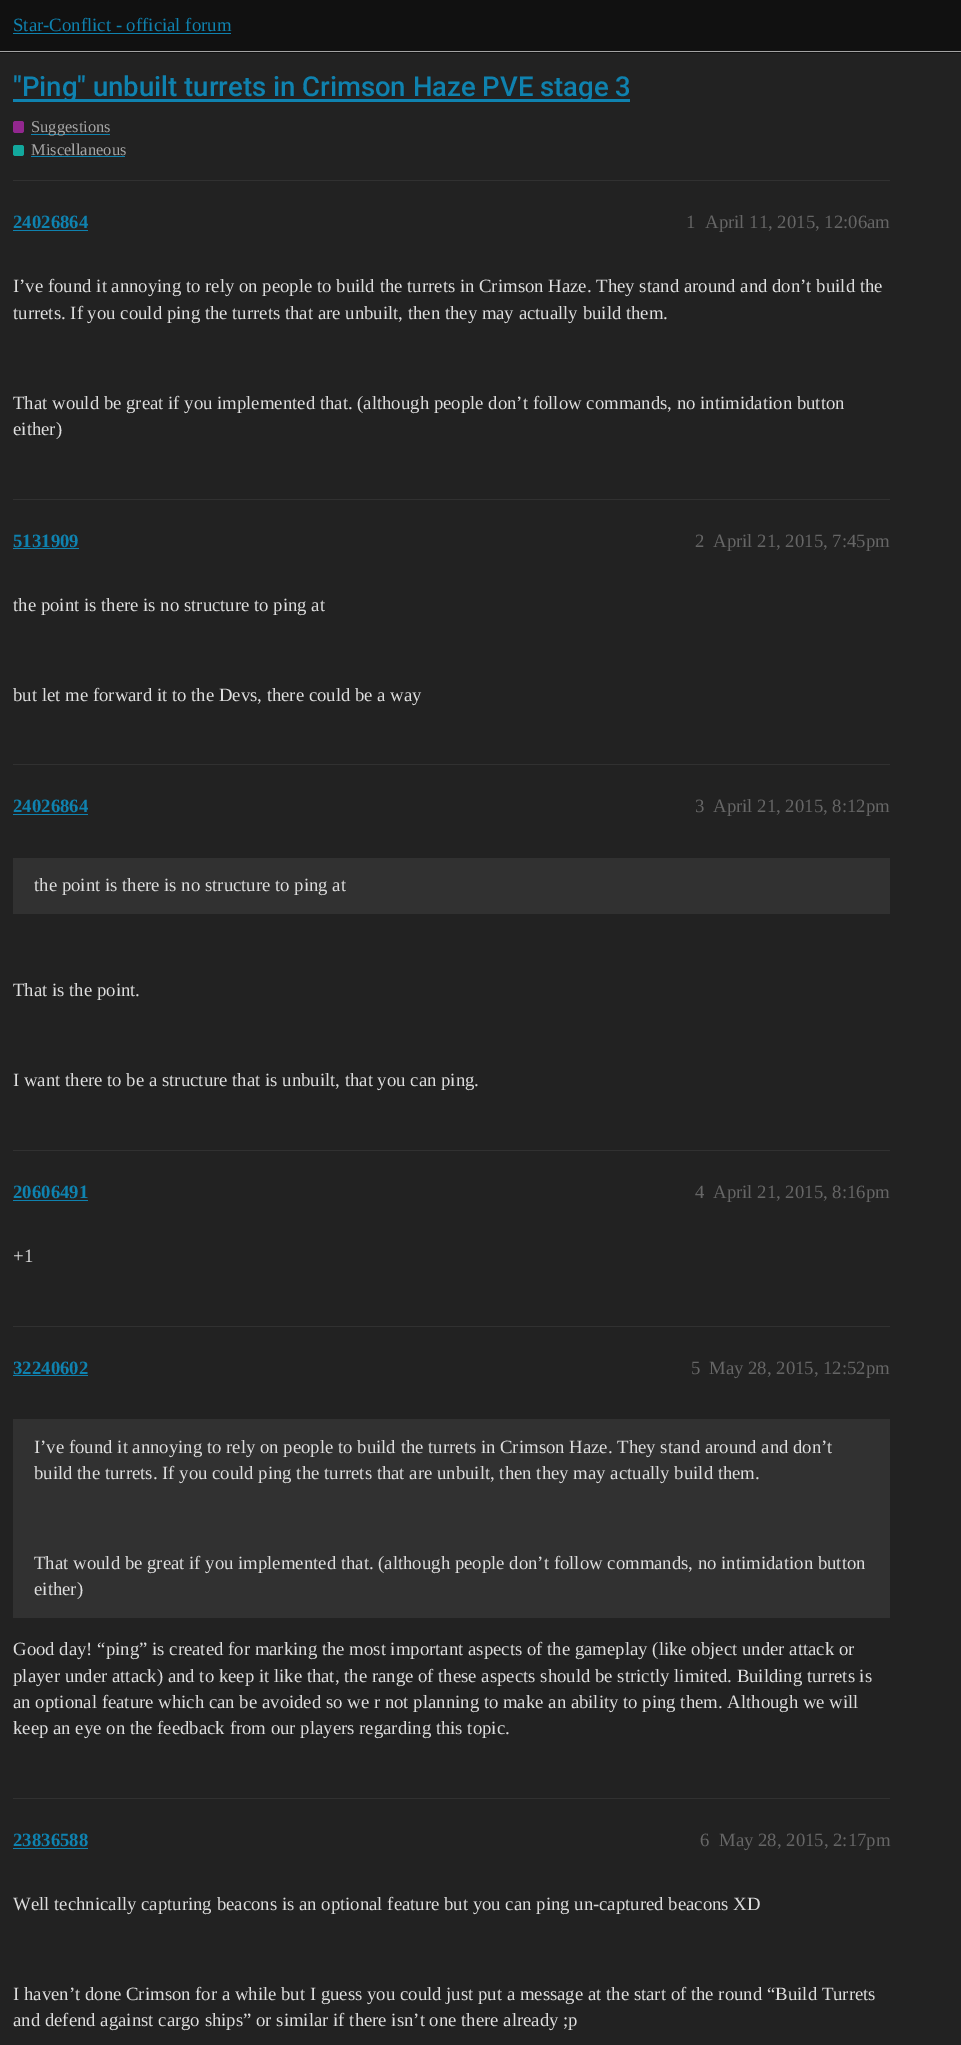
%!PS
<< /PageSize [961 2045] >> setpagedevice
/rgb { 3 { 255 div 3 1 roll } repeat setrgbcolor } def
/font { [ exch dup neg 0 0 3 -1 roll 0 0 ] selectfont } def
/roundrect { 5 dict begin { /r /h /w /y /x } { exch def } forall
  x r add y moveto x w add y 2 copy h add r arct x w add y h add x 1 index r arct
  x y h add x y r arct x y 2 copy exch w add exch r arct closepath end } def
0 2045 translate 1 -1 scale
4 setmiterlimit
34 34 34 rgb
0 0 961 2045 rectfill
[
  [0 0 961 53 17 17 17]
  [0 51 961 1 164 164 164]
  [13 33 218 1 15 130 175]
  [13 99 617 3 15 130 175]
] { aload pop rgb rectfill } forall
146 39 143 rgb
13 121 11 12 2.5 roundrect fill
15 130 175 rgb
31 134 79 1 rectfill
18 168 157 rgb
13 145 11 11 2.5 roundrect fill
[
  [31 156 94 1 15 130 175]
  [13 180 877 1 49 49 49]
  [13 230 75 1 15 130 175]
  [13 499 877 1 49 49 49]
  [13 548 66 1 15 130 175]
  [13 764 877 1 49 49 49]
  [13 814 75 1 15 130 175]
  [13 858 877 56 49 49 49]
  [13 1150 877 1 49 49 49]
  [13 1200 75 1 15 130 175]
  [13 1326 877 1 49 49 49]
  [13 1375 75 1 15 130 175]
  [13 1419 877 199 49 49 49]
  [13 1798 877 1 49 49 49]
  [13 1848 75 1 15 130 175]
] { aload pop rgb rectfill } forall
/LiberationSerif-Regular 18.75 font
13 31 moveto (Star-Conflict - official forum) show
/Roboto-Medium 27.5 font
13 96 moveto ("Ping" unbuilt turrets in Crimson Haze PVE stage 3) show
/LiberationSerif-Regular 16.5 font
166 166 166 rgb
31 132 moveto (Suggestions) show
31 155 moveto (Miscellaneous) show
/LiberationSerif-Bold 18.75 font
15 130 175 rgb
13 228 moveto (24026864) show
/LiberationSerif-Regular 18.75 font
102 102 102 rgb
686 228 moveto (1) show
705 228 moveto (April 11, 2015, 12:06am) show
221 221 221 rgb
13 292 moveto (I’ve found it annoying to rely on people to build the turrets in Crimson Haze. They stand around and don’t build the) show
13 319 moveto (turrets. If you could ping the turrets that are unbuilt, then they may actually build them.) show
gsave
13 255 877 206 rectclip
13 409 moveto (That would be great if you implemented that. \(although people don’t follow commands, no intimidation button) show
grestore
13 435 moveto (either\)) show
/LiberationSerif-Bold 18.75 font
15 130 175 rgb
13 547 moveto (5131909) show
/LiberationSerif-Regular 18.75 font
102 102 102 rgb
695 547 moveto (2) show
713 547 moveto (April 21, 2015, 7:45pm) show
221 221 221 rgb
13 611 moveto (the point is there is no structure to ping at) show
13 701 moveto (but let me forward it to the Devs, there could be a way) show
/LiberationSerif-Bold 18.75 font
15 130 175 rgb
13 812 moveto (24026864) show
/LiberationSerif-Regular 18.75 font
102 102 102 rgb
695 812 moveto (3) show
713 812 moveto (April 21, 2015, 8:12pm) show
221 221 221 rgb
34 891 moveto (the point is there is no structure to ping at) show
gsave
13 839 877 274 rectclip
13 996 moveto (That is the point.) show
grestore
13 1086 moveto (I want there to be a structure that is unbuilt, that you can ping.) show
/LiberationSerif-Bold 18.75 font
15 130 175 rgb
13 1198 moveto (20606491) show
/LiberationSerif-Regular 18.75 font
102 102 102 rgb
695 1198 moveto (4) show
713 1198 moveto (April 21, 2015, 8:16pm) show
221 221 221 rgb
13 1262 moveto (+1) show
/LiberationSerif-Bold 18.75 font
15 130 175 rgb
13 1374 moveto (32240602) show
/LiberationSerif-Regular 18.75 font
102 102 102 rgb
691 1374 moveto (5) show
709 1374 moveto (May 28, 2015, 12:52pm) show
221 221 221 rgb
[
  [(I’ve found it annoying to rely on people to build the turrets in Crimson Haze. They stand around and don’t) 34 1453]
  [(build the turrets. If you could ping the turrets that are unbuilt, then they may actually build them.) 34 1479]
  [(That would be great if you implemented that. \(although people don’t follow commands, no intimidation button) 34 1569]
  [(either\)) 34 1595]
  [(Good day! “ping” is created for marking the most important aspects of the gameplay \(like object under attack or) 13 1655]
  [(player under attack\) and to keep it like that, the range of these aspects should be strictly limited. Building turrets is) 13 1682]
  [(an optional feature which can be avoided so we r not planning to make an ability to ping them. Although we will) 13 1708]
  [(keep an eye on the feedback from our players regarding this topic.) 13 1734]
] { aload pop moveto show } forall
/LiberationSerif-Bold 18.75 font
15 130 175 rgb
13 1846 moveto (23836588) show
/LiberationSerif-Regular 18.75 font
102 102 102 rgb
700 1846 moveto (6) show
719 1846 moveto (May 28, 2015, 2:17pm) show
221 221 221 rgb
[
  [(Well technically capturing beacons is an optional feature but you can ping un-captured beacons XD) 13 1910]
  [(I haven’t done Crimson for a while but I guess you could just put a message at the start of the round “Build Turrets) 13 2000]
  [(and defend against cargo ships” or similar if there isn’t one there already ;p) 13 2026]
] { aload pop moveto show } forall
showpage
